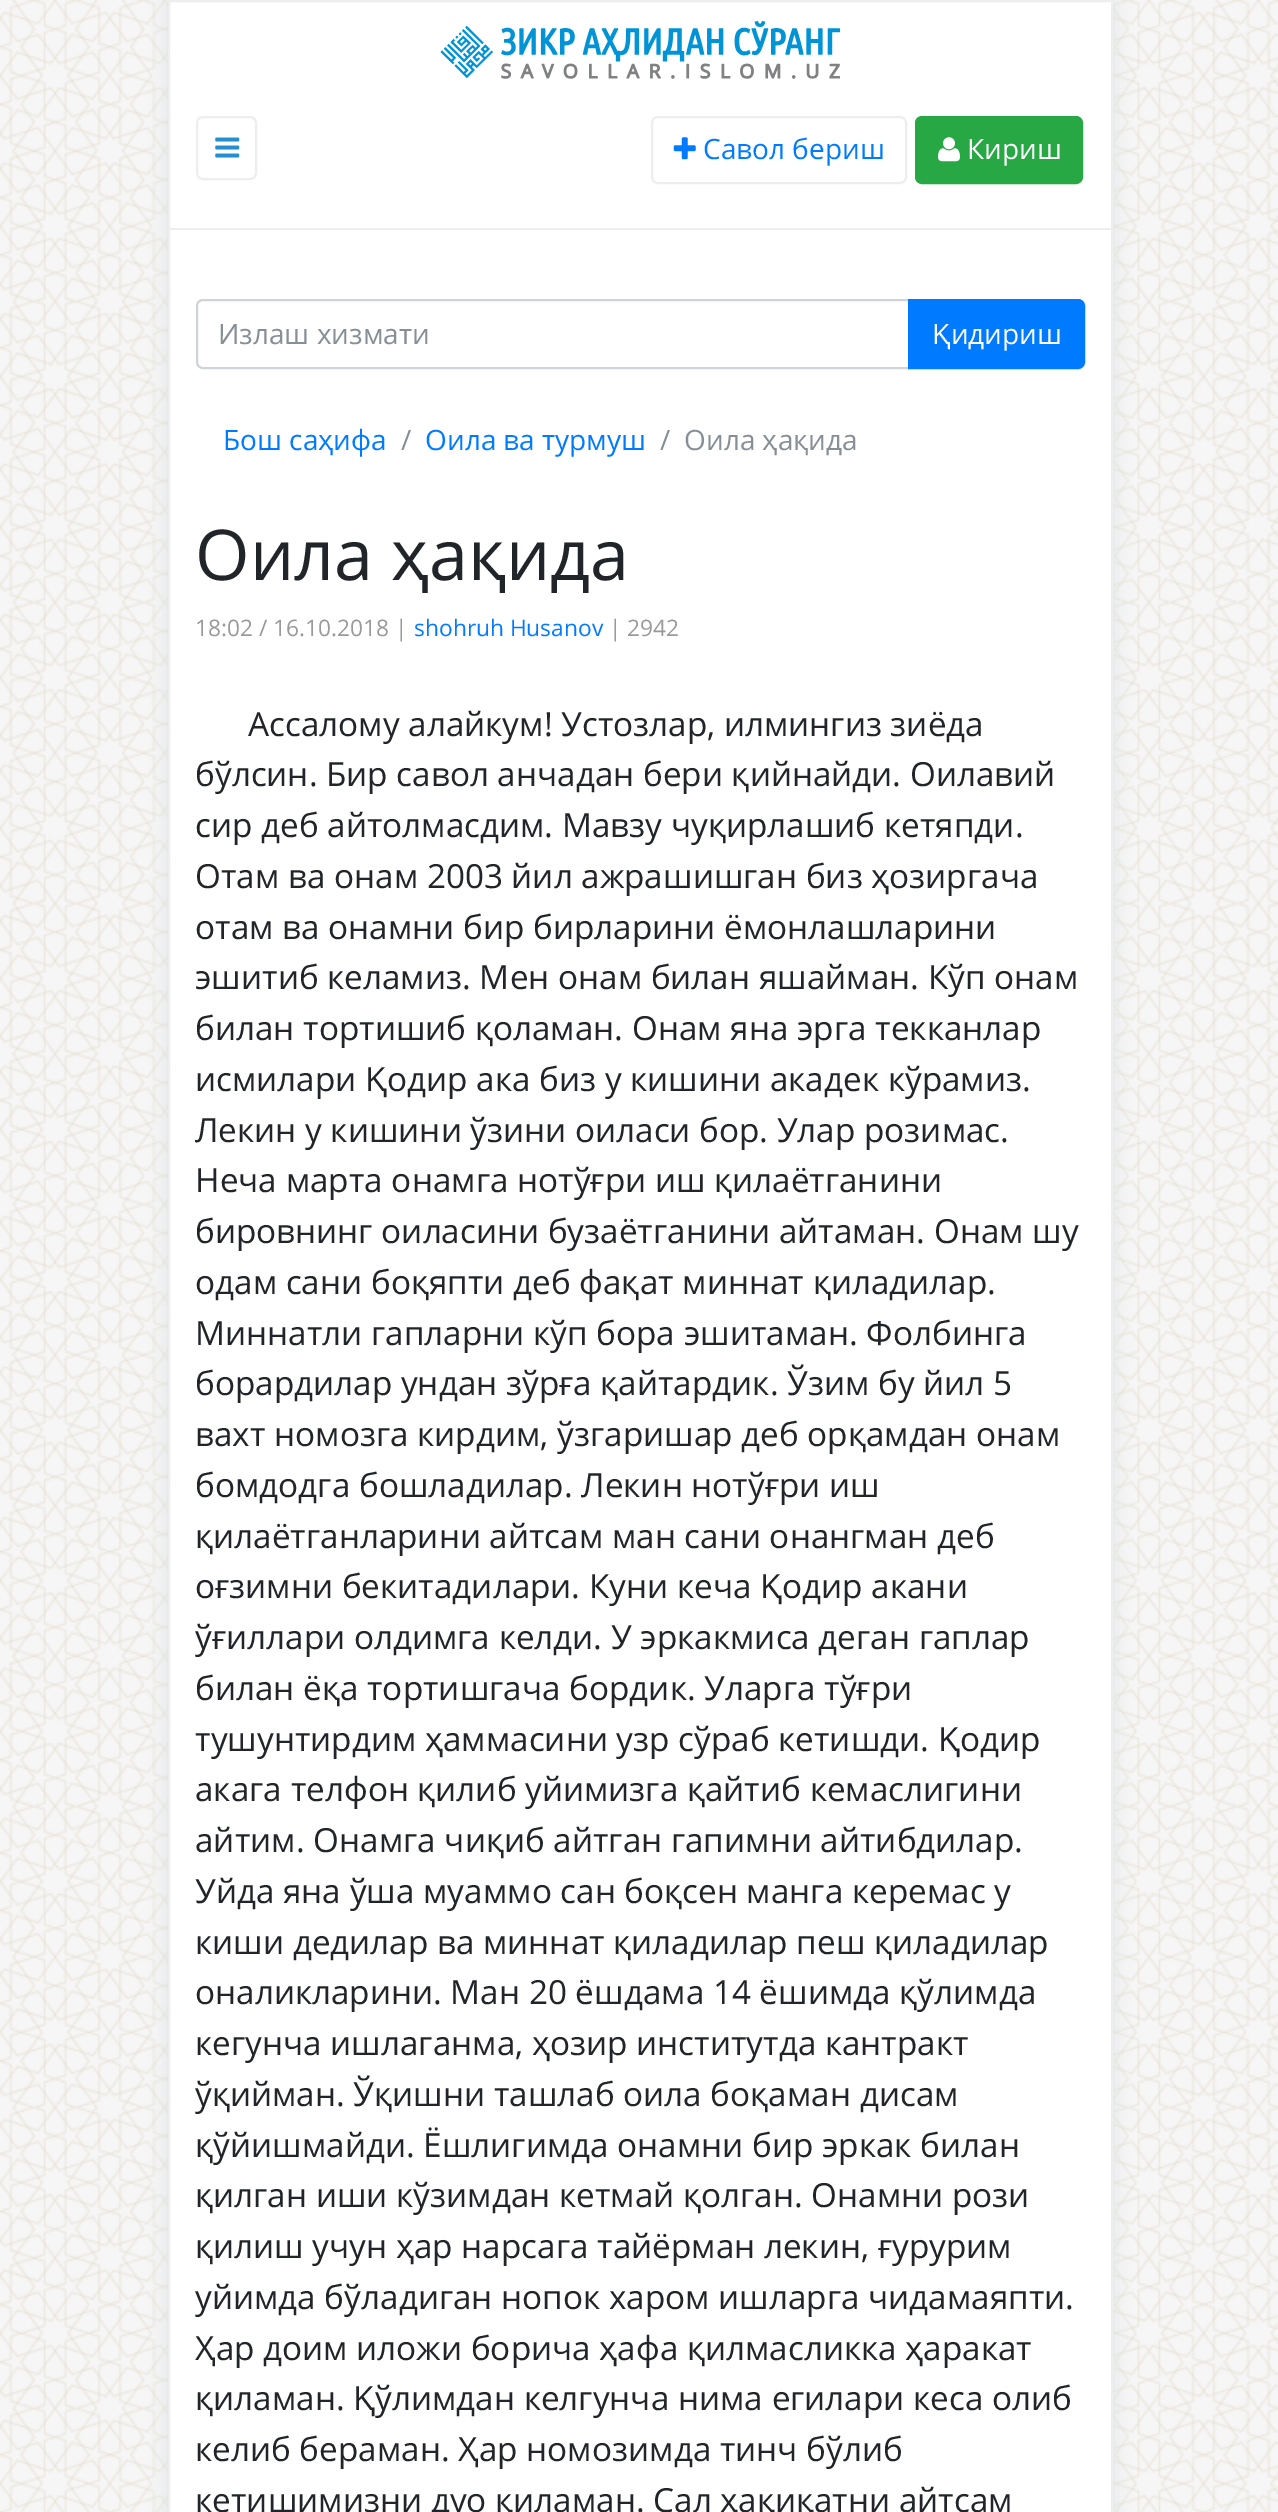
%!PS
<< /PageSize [1278 2512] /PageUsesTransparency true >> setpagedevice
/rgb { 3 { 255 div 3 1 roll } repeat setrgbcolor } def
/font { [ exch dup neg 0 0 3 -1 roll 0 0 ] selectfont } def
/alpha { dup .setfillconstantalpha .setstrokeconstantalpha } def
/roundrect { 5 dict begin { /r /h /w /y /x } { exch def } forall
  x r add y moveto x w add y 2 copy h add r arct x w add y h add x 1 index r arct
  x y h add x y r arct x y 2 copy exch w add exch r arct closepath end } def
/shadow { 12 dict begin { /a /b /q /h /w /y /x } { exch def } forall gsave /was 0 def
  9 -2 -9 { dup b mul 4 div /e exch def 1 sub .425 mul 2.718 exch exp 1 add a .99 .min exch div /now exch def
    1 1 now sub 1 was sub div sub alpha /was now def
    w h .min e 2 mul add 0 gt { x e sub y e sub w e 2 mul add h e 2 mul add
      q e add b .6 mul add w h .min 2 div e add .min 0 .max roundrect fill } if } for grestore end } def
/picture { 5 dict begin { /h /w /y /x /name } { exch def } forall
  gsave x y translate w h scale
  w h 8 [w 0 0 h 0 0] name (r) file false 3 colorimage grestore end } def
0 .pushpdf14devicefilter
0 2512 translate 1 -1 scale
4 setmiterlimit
242 242 242 rgb
0 0 1278 2512 rectfill
(img/1.rgb) 0 0 1278 2512 picture
220 226 227 rgb
168 2 945 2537 0 9 1 shadow
255 255 255 rgb
169 1 moveto 1112 1 lineto 1112 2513 lineto 169 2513 lineto closepath gsave fill grestore
238 238 238 rgb
2 setlinewidth
stroke
170 228 941 2 rectfill
(img/2.rgb) 440 21 401 58 picture
197 117 59 62 6 roundrect stroke
(img/3.rgb) 215 137 25 21 picture
652 117 254 66 6 roundrect stroke
(img/4.rgb) 673 137 23 23 picture
40 167 69 rgb
916 117 166 66 6 roundrect gsave fill grestore
stroke
(img/5.rgb) 938 137 22 25 picture
206 212 218 rgb
203 300 moveto 909 300 lineto 909 368 lineto 203 368 lineto 199.5 368 197 365.5 197 362 curveto 197 306 lineto 197 302.5 199.5 300 203 300 curveto closepath stroke
0 123 255 rgb
909 300 moveto 1078 300 lineto 1081.5 300 1084 302.5 1084 306 curveto 1084 362 lineto 1084 365.5 1081.5 368 1078 368 curveto 909 368 lineto closepath gsave fill grestore
stroke
/OpenSans-Regular 28 font
703 159 moveto (Савол бериш) show
255 255 255 rgb
967 159 moveto (Кириш) show
134 142 150 rgb
218 344 moveto (Излаш хизмати) show
255 255 255 rgb
932 344 moveto (Қидириш) show
0 123 255 rgb
223 450 moveto (Бош саҳифа) show
134 142 150 rgb
401 450 moveto (/) show
0 123 255 rgb
425 450 moveto (Оила ва турмуш) show
134 142 150 rgb
660 450 moveto (/) show
684 450 moveto (Оила ҳақида) show
/OpenSans-Regular 70 font
33 37 41 rgb
195 580 moveto (Оила ҳақида) show
/OpenSans-Regular 22.75 font
153 153 153 rgb
195 636 moveto (18:02 / 16.10.2018 |) show
0 123 255 rgb
414 636 moveto (shohruh Husanov) show
153 153 153 rgb
609 636 moveto (| 2942) show
/OpenSans-Regular 33.25 font
33 37 41 rgb
[
  [(Ассалому алайкум! Устозлар, илмингиз зиёда) 248 736]
  [(бўлсин. Бир савол анчадан бери қийнайди. Оилавий) 195 786]
  [(сир деб айтолмасдим. Мавзу чуқирлашиб кетяпди.) 195 837]
  [(Отам ва онам 2003 йил ажрашишган биз ҳозиргача) 195 888]
  [(отам ва онамни бир бирларини ёмонлашларини) 195 939]
  [(эшитиб келамиз. Мен онам билан яшайман. Кўп онам) 195 989]
  [(билан тортишиб қоламан. Онам яна эрга текканлар) 195 1040]
  [(исмилари Қодир ака биз у кишини акадек кўрамиз.) 195 1091]
  [(Лекин у кишини ўзини оиласи бор. Улар розимас.) 195 1142]
  [(Неча марта онамга нотўғри иш қилаётганини) 195 1192]
  [(бировнинг оиласини бузаётганини айтаман. Онам шу) 195 1243]
  [(одам сани боқяпти деб фақат миннат қиладилар.) 195 1294]
  [(Миннатли гапларни кўп бора эшитаман. Фолбинга) 195 1345]
  [(борардилар ундан зўрға қайтардик. Ўзим бу йил 5) 195 1395]
  [(вахт номозга кирдим, ўзгаришар деб орқамдан онам) 195 1446]
  [(бомдодга бошладилар. Лекин нотўғри иш) 195 1497]
  [(қилаётганларини айтсам ман сани онангман деб) 195 1548]
  [(оғзимни бекитадилари. Куни кеча Қодир акани) 195 1598]
  [(ўғиллари олдимга келди. У эркакмиса деган гаплар) 195 1649]
  [(билан ёқа тортишгача бордик. Уларга тўғри) 195 1700]
  [(тушунтирдим ҳаммасини узр сўраб кетишди. Қодир) 195 1751]
  [(акага телфон қилиб уйимизга қайтиб кемаслигини) 195 1801]
  [(айтим. Онамга чиқиб айтган гапимни айтибдилар.) 195 1852]
  [(Уйда яна ўша муаммо сан боқсен манга керемас у) 195 1903]
  [(киши дедилар ва миннат қиладилар пеш қиладилар) 195 1954]
  [(оналикларини. Ман 20 ёшдама 14 ёшимда қўлимда) 195 2004]
  [(кегунча ишлаганма, ҳозир институтда кантракт) 195 2055]
  [(ўқийман. Ўқишни ташлаб оила боқаман дисам) 195 2106]
  [(қўйишмайди. Ёшлигимда онамни бир эркак билан) 195 2157]
  [(қилган иши кўзимдан кетмай қолган. Онамни рози) 195 2207]
  [(қилиш учун ҳар нарсага тайёрман лекин, ғурурим) 195 2258]
  [(уйимда бўладиган нопок харом ишларга чидамаяпти.) 195 2309]
  [(Ҳар доим иложи борича ҳафа қилмасликка ҳаракат) 195 2360]
  [(қиламан. Қўлимдан келгунча нима егилари кеса олиб) 195 2410]
  [(келиб бераман. Ҳар номозимда тинч бўлиб) 195 2461]
  [(кетишимизни дуо қиламан. Сал ҳақиқатни айтсам) 195 2512]
] { aload pop moveto show } forall
.poppdf14devicefilter showpage
